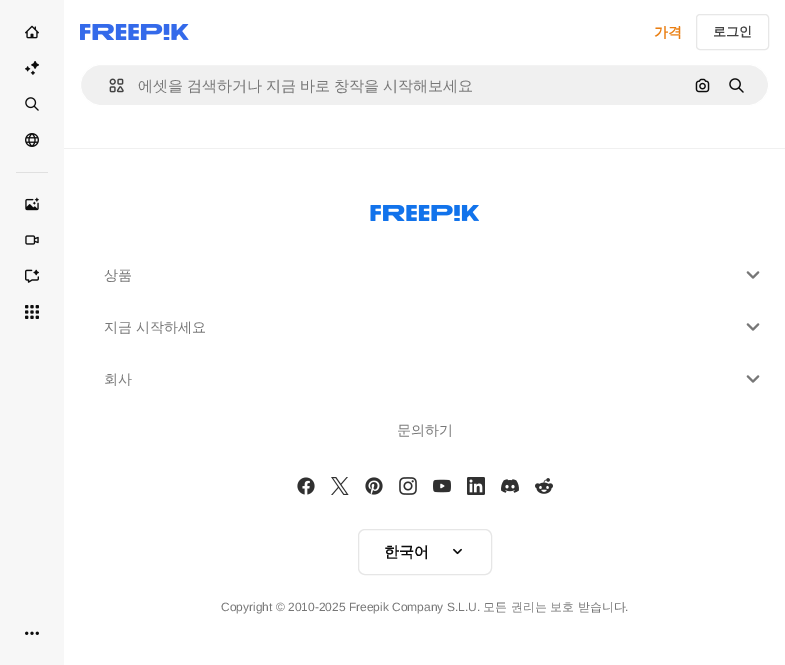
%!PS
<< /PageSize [785 665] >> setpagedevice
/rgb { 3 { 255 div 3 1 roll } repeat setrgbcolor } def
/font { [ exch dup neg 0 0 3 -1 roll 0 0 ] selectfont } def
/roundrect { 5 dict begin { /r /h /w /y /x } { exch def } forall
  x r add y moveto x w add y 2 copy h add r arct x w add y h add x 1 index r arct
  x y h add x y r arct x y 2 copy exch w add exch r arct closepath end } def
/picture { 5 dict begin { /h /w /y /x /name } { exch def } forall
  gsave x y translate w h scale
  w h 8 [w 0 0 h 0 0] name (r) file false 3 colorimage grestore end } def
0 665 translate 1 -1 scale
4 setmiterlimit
255 255 255 rgb
0 0 785 665 rectfill
247 247 247 rgb
0 0 64 665 rectfill
(img/1.rgb) 25 25 14 14 picture
(img/2.rgb) 25 61 14 14 picture
(img/3.rgb) 25 97 14 14 picture
(img/4.rgb) 25 133 14 14 picture
224 224 224 rgb
16 172 32 1 rectfill
(img/5.rgb) 25 197 14 14 picture
(img/6.rgb) 25 235 14 10 picture
(img/7.rgb) 25 269 14 14 picture
(img/8.rgb) 25 305 14 14 picture
(img/9.rgb) 25 631 14 4 picture
(img/10.rgb) 80 24 109 16 picture
231 231 231 rgb
696.5 14.5 72 35 3.5 roundrect stroke
240 240 240 rgb
80.5 64.5 688 41 20.5 roundrect gsave fill grestore
255 255 255 rgb
stroke
(img/11.rgb) 109 78 15 15 picture
(img/12.rgb) 695 78 15 15 picture
(img/13.rgb) 729 78 15 15 picture
240 240 240 rgb
64 148 721 1 rectfill
(img/14.rgb) 370 205 109 16 picture
(img/15.rgb) 746 271 14 8 picture
(img/15.rgb) 746 323 14 8 picture
(img/15.rgb) 746 375 14 8 picture
(img/16.rgb) 297 477 18 18 picture
(img/17.rgb) 331 477 18 18 picture
(img/18.rgb) 365 477 18 18 picture
(img/19.rgb) 399 477 18 18 picture
(img/20.rgb) 433 479 18 14 picture
(img/21.rgb) 467 477 18 18 picture
(img/22.rgb) 501 479 18 14 picture
(img/23.rgb) 535 478 18 16 picture
230 230 230 rgb
358.5 529.5 133 45 6.5 roundrect stroke
(img/24.rgb) 453 548 9 7 picture
/WenQuanYiZenHei-Bold 14 font
234 126 17 rgb
654 37 moveto (가격) show
/WenQuanYiZenHei-Bold 13 font
66 66 66 rgb
713 36 moveto (로그인) show
/WenQuanYiZenHei-Medium 15 font
119 119 119 rgb
138 91 moveto -0.5 0 32 (에셋을 검색하거나 지금 바로 창작을 시작해보세요) widthshow
/WenQuanYiZenHei-Medium 14 font
[
  [(상품) 104 280]
  [(지금 시작하세요) 104 332]
  [(회사) 104 384]
  [(문의하기) 397 435]
] { aload pop moveto show } forall
/WenQuanYiZenHei-Bold 15 font
13 13 13 rgb
384 557 moveto (한국어) show
/LiberationSans-Regular 12 font
119 119 119 rgb
221 611 moveto (Copyright © 2010-2025 Freepik Company S.L.U.) show
/WenQuanYiZenHei-Medium 12 font
483 611 moveto (모든 권리는 보호 받습니다) show
/LiberationSans-Regular 12 font
625 611 moveto (.) show
showpage
